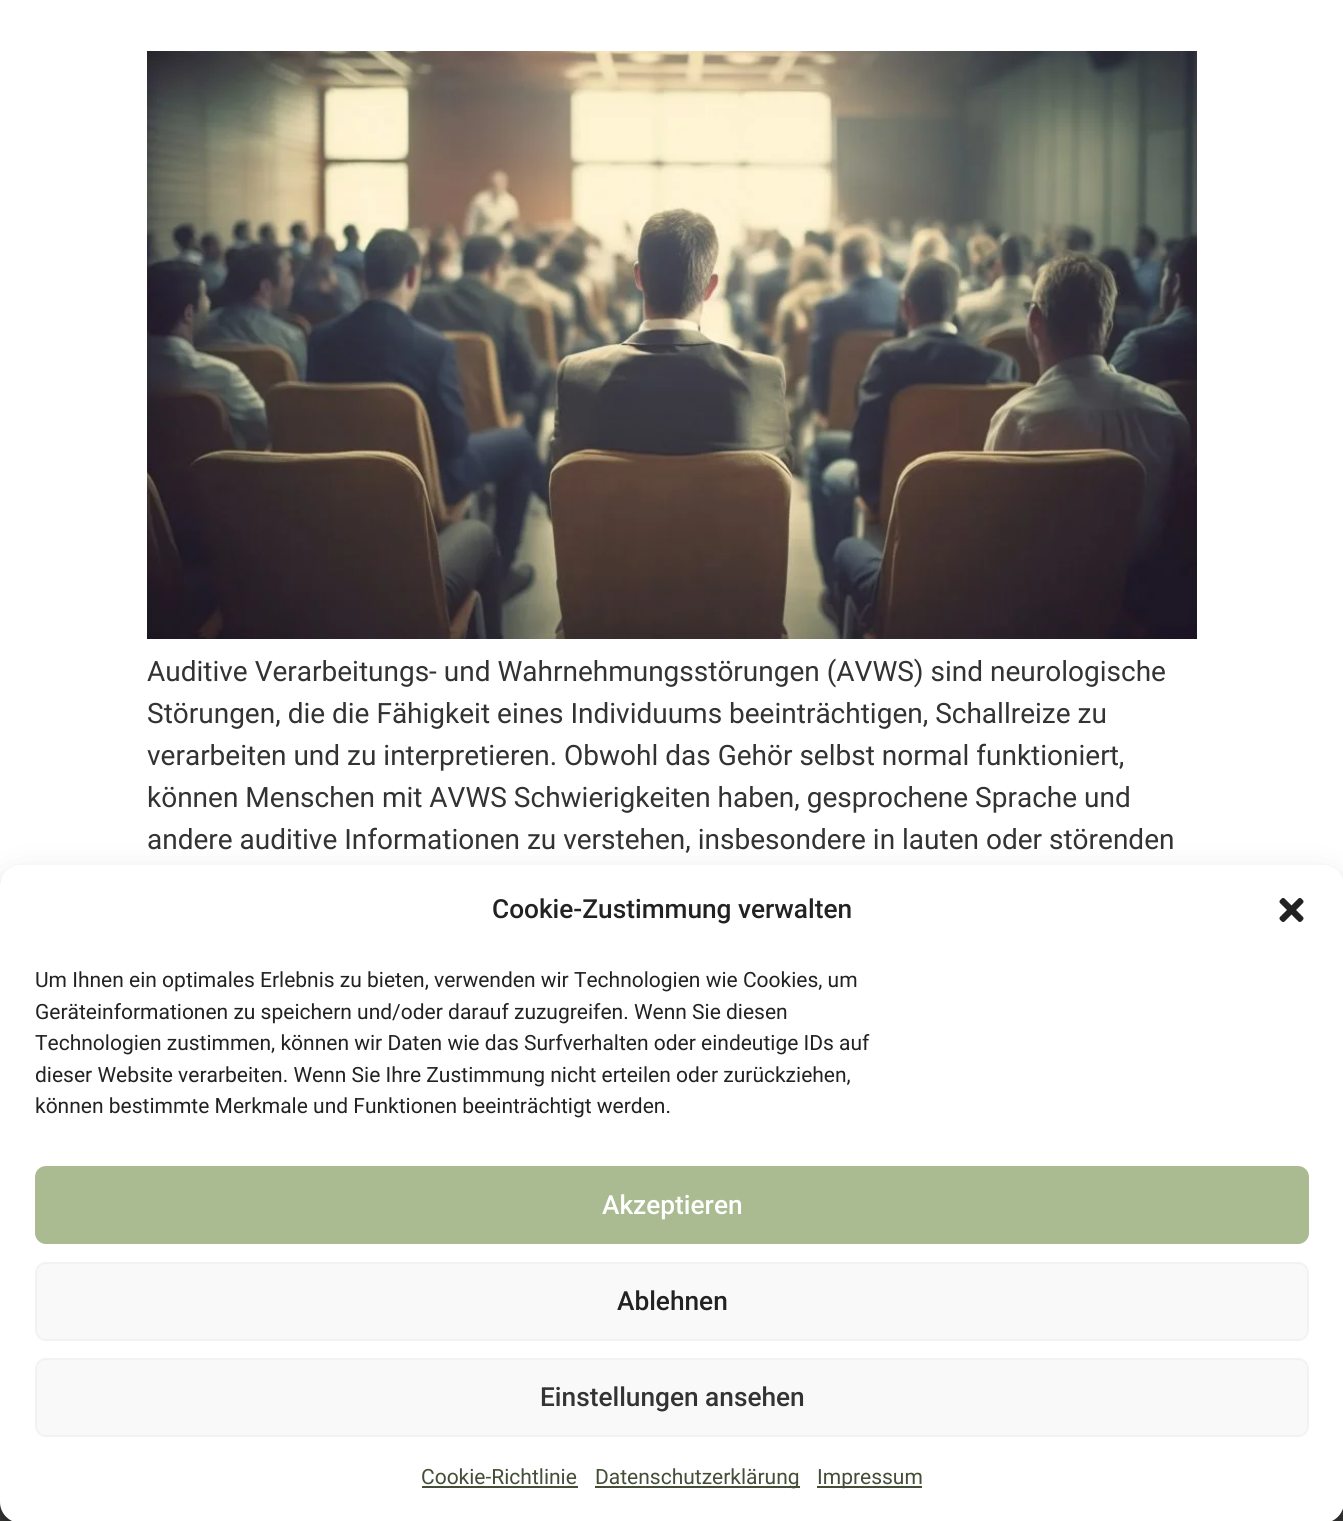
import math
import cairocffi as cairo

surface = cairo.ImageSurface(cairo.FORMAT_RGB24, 1343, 1521)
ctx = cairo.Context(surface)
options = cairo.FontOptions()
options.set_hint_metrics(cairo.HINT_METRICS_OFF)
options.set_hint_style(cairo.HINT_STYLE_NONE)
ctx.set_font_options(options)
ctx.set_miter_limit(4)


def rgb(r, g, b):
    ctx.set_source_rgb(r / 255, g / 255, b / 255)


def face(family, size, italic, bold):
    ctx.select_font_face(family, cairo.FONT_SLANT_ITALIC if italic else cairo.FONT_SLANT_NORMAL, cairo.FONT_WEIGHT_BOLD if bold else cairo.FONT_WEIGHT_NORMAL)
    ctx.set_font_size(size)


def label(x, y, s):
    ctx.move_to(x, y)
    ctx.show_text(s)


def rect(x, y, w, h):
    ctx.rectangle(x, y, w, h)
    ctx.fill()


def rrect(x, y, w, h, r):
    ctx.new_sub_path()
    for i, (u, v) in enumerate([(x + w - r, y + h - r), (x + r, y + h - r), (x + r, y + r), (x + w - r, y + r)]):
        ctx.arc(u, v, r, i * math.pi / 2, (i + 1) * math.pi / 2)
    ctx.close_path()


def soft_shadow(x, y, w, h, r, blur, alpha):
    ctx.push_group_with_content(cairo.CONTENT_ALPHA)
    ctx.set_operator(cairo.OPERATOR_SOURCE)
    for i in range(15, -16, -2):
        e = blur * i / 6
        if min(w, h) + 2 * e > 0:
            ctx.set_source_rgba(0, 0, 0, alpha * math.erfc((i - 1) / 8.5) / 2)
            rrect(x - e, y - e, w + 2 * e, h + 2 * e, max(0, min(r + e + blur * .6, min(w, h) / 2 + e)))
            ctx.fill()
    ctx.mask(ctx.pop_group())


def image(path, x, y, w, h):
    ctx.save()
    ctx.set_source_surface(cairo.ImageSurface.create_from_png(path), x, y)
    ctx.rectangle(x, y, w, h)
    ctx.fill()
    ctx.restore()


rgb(255, 255, 255)
ctx.paint()
image('image0.png', 147, 51, 1050, 588)
face('Roboto', 28, 0, 0)
rgb(51, 51, 51)
label(147, 681, 'Auditive Verarbeitungs- und Wahrnehmungsstörungen (AVWS) sind neurologische')
label(147, 723, 'Störungen, die die Fähigkeit eines Individuums beeinträchtigen, Schallreize zu')
label(147, 765, 'verarbeiten und zu interpretieren. Obwohl das Gehör selbst normal funktioniert,')
label(147, 807, 'können Menschen mit AVWS Schwierigkeiten haben, gesprochene Sprache und')
label(147, 849, 'andere auditive Informationen zu verstehen, insbesondere in lauten oder störenden')
rgb(59, 59, 58)
rect(0, 1502, 1343, 19)
rgb(0, 0, 0)
soft_shadow(0, 875, 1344, 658, 21, 5, 0.23)
soft_shadow(0, 882, 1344, 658, 21, 17.5, 0.19)
rgb(255, 255, 255)
rrect(0, 865, 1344, 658, 21)
ctx.fill()
face('Roboto Medium', 26.25, 0, 0)
rgb(34, 34, 34)
label(492, 918, 'Cookie-Zustimmung verwalten')
image('image1.png', 1279, 898, 25, 24)
face('Roboto', 21, 0, 0)
label(35, 987, 'Um Ihnen ein optimales Erlebnis zu bieten, verwenden wir Technologien wie Cookies, um')
label(35, 1019, 'Geräteinformationen zu speichern und/oder darauf zuzugreifen. Wenn Sie diesen')
label(35, 1050, 'Technologien zustimmen, können wir Daten wie das Surfverhalten oder eindeutige IDs auf')
label(35, 1082, 'dieser Website verarbeiten. Wenn Sie Ihre Zustimmung nicht erteilen oder zurückziehen,')
label(35, 1113, 'können bestimmte Merkmale und Funktionen beeinträchtigt werden.')
rgb(170, 186, 145)
rrect(36, 1167, 1272, 76, 10)
ctx.fill_preserve()
ctx.stroke()
face('Roboto Medium', 26.25, 0, 0)
rgb(255, 255, 255)
label(602, 1214, 'Akzeptieren')
rgb(249, 249, 249)
rrect(36, 1263, 1272, 77, 10)
ctx.fill_preserve()
rgb(242, 242, 242)
ctx.stroke()
rgb(34, 34, 34)
label(617, 1310, 'Ablehnen')
rgb(249, 249, 249)
rrect(36, 1359, 1272, 77, 10)
ctx.fill_preserve()
rgb(242, 242, 242)
ctx.stroke()
rgb(51, 51, 51)
label(540, 1406, 'Einstellungen ansehen')
face('Roboto', 21, 0, 0)
rgb(67, 78, 55)
label(421, 1484, 'Cookie-Richtlinie')
rect(422, 1486, 156, 2)
rect(595, 1486, 205, 2)
label(595, 1484, 'Datenschutzerklärung')
rect(817, 1486, 105, 2)
label(817, 1484, 'Impressum')
surface.write_to_png('render.png')
